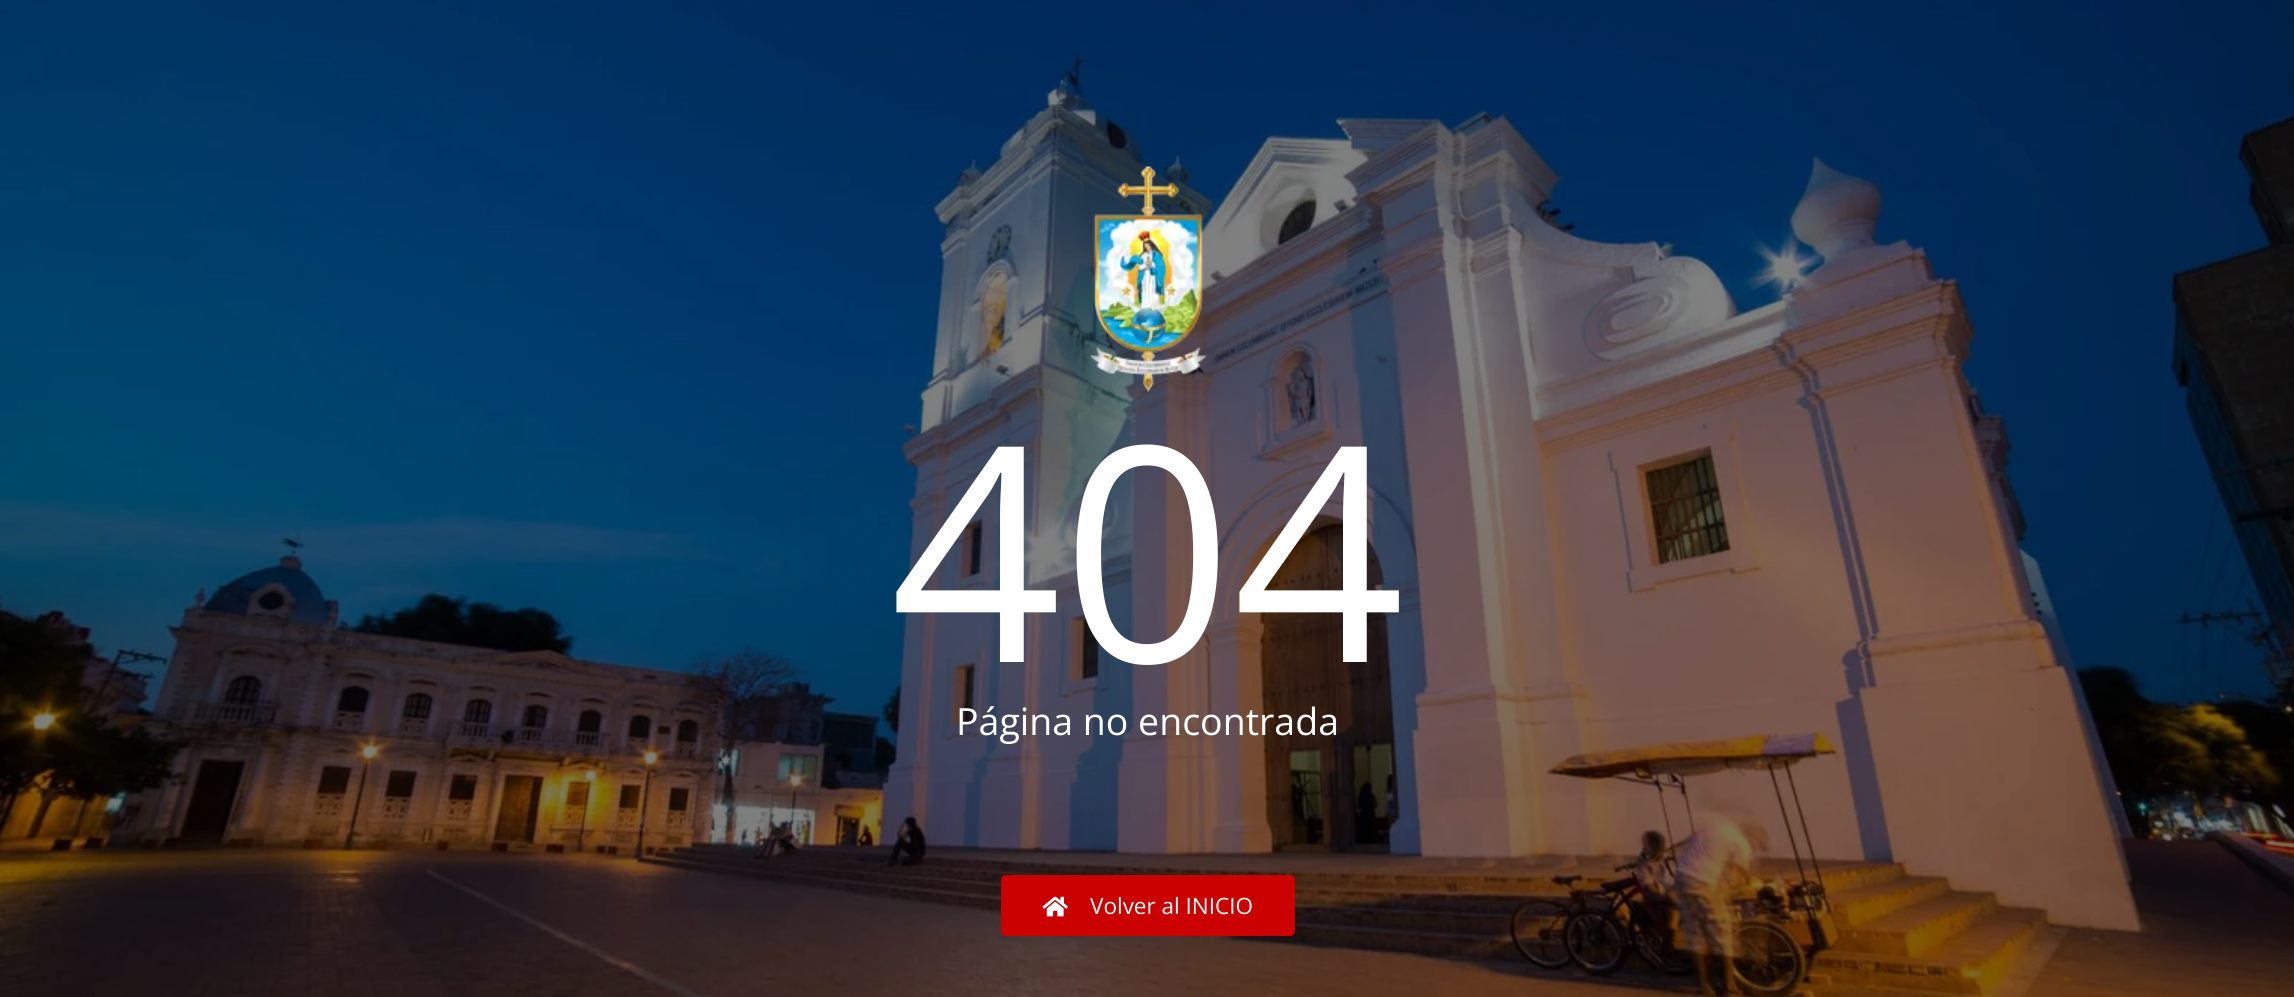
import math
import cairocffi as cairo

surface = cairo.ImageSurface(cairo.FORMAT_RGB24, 2294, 997)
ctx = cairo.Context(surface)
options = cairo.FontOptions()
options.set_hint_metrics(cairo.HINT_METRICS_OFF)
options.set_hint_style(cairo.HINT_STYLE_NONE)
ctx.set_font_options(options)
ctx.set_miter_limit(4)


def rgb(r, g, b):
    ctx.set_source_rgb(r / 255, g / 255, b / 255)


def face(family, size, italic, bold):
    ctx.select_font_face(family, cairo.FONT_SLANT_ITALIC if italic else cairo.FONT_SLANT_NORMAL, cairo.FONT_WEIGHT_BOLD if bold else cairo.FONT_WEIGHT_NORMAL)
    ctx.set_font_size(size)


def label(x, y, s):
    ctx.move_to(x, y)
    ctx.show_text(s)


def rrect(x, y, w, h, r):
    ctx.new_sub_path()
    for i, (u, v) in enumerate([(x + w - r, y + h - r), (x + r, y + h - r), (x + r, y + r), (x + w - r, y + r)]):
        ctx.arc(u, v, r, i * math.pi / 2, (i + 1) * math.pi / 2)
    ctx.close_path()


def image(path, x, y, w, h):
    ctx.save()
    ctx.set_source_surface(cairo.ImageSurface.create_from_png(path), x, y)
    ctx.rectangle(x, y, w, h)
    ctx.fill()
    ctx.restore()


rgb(255, 255, 255)
ctx.paint()
image('image0.png', 0, 0, 2294, 997)
image('image1.png', 1090, 166, 116, 226)
face('Open Sans', 300, 0, 0)
rgb(255, 255, 255)
label(890, 662, '404')
face('Open Sans', 37.5, 0, 0)
label(956, 735, 'Página no encontrada')
rgb(203, 0, 0)
rrect(1001, 875, 294, 61, 5)
ctx.fill()
image('image2.png', 1042, 896, 26, 21)
face('Open Sans', 22.5, 0, 0)
rgb(255, 255, 255)
label(1090, 914, 'Volver al INICIO')
surface.write_to_png('render.png')
